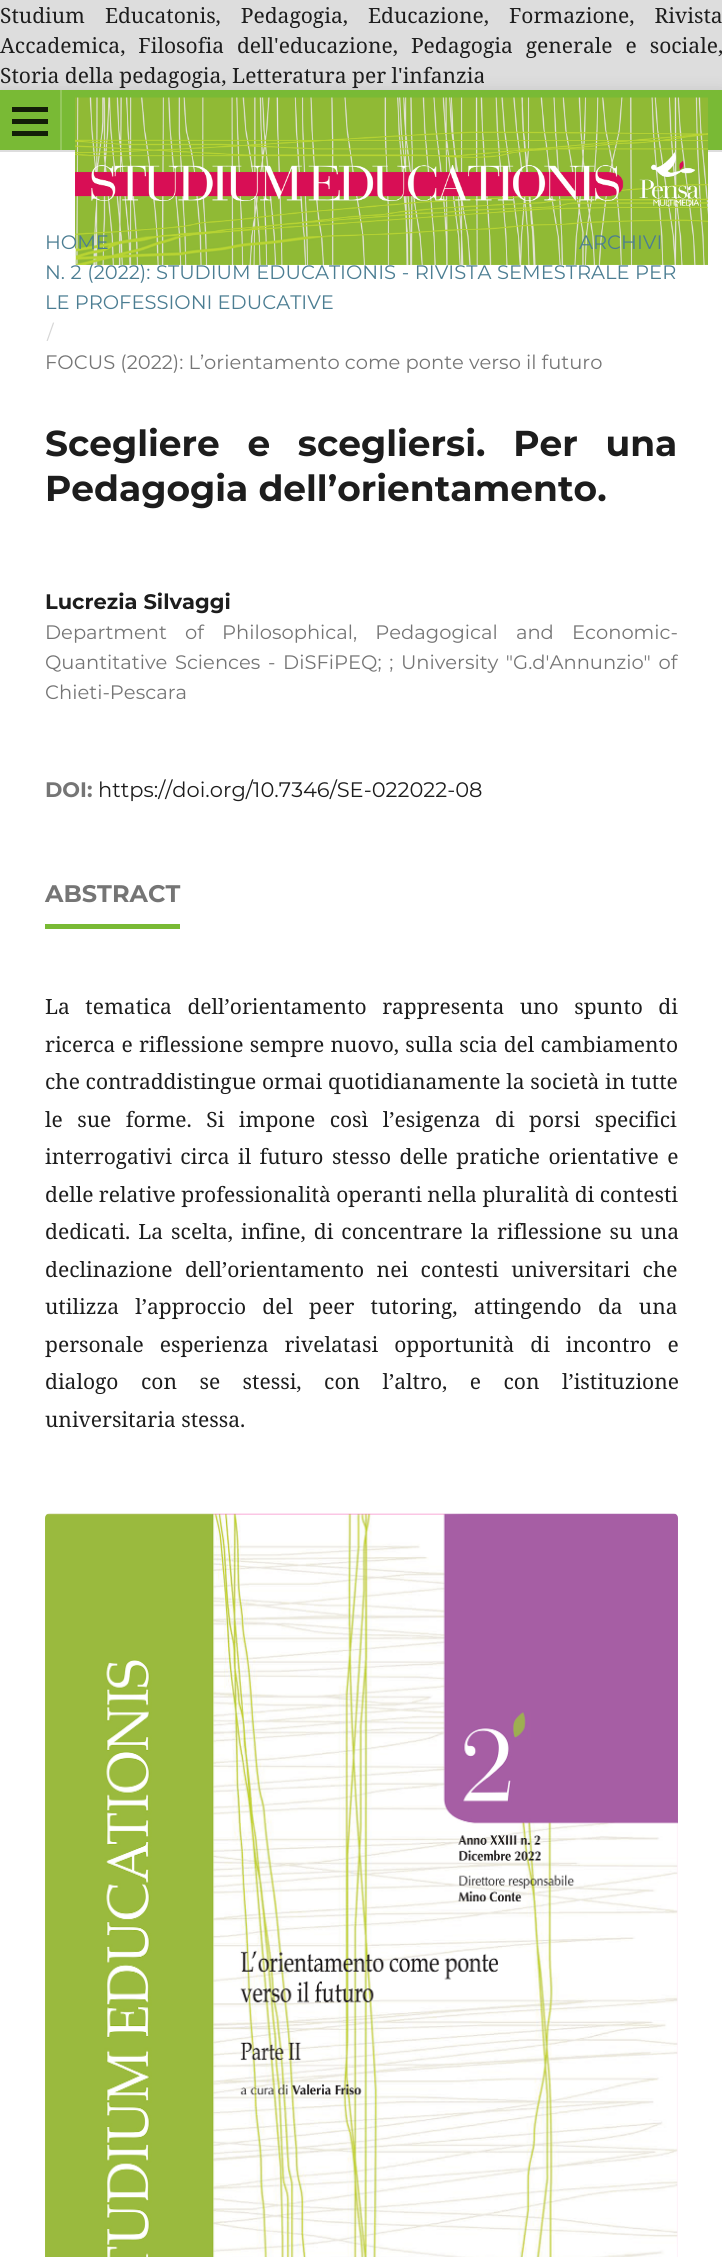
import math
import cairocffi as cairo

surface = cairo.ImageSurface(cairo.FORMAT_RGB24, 722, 2257)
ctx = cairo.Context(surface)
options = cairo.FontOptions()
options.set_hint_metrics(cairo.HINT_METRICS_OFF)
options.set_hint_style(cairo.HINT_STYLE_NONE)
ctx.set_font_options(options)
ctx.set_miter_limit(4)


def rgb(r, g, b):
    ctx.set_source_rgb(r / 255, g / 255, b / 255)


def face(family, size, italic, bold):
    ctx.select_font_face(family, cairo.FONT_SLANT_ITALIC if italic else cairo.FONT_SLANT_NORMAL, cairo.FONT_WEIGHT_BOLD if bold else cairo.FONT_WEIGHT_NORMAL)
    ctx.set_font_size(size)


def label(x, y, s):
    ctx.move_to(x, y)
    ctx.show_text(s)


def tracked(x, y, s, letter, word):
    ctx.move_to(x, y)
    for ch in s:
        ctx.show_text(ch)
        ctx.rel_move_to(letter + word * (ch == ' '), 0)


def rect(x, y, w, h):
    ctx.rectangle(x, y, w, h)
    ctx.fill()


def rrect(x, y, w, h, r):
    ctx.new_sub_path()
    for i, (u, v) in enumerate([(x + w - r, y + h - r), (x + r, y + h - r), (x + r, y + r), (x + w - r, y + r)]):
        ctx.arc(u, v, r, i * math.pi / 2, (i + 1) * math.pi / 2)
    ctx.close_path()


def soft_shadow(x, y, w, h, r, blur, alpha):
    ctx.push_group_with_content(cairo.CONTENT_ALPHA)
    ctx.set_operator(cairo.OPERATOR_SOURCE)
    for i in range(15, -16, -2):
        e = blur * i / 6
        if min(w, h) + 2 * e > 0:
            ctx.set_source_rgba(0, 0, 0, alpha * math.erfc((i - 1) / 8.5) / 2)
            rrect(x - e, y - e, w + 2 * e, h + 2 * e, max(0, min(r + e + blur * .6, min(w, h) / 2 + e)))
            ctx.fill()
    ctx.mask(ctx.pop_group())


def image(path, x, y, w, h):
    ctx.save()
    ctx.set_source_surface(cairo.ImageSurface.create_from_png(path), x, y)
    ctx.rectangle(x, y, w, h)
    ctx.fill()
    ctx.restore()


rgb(221, 221, 221)
ctx.paint()
face('Noto Serif', 21, 0, 0)
rgb(29, 29, 29)
tracked(0, 23, 'Studium Educatonis, Pedagogia, Educazione, Formazione, Rivista', 0, 14.5)
tracked(0, 53, 'Accademica, Filosofia dell\'educazione, Pedagogia generale e sociale,', 0, 7.5)
rgb(0, 0, 0)
soft_shadow(0, 90, 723, 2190, 0, 7.5, 0.1)
rgb(29, 29, 29)
label(0, 83, 'Storia della pedagogia, Letteratura per l\'infanzia')
rgb(255, 255, 255)
rect(0, 152, 722, 2105)
rgb(121, 186, 53)
rect(0, 90, 722, 60)
rgb(221, 221, 221)
rect(0, 150, 722, 2)
rgb(148, 200, 93)
rect(60, 90, 2, 60)
rgb(19, 30, 8)
rect(12, 131, 36, 5)
rect(12, 107, 36, 5)
rect(12, 119, 36, 5)
image('image0.png', 75, 97, 633, 168)
face('Montserrat', 19.5, 0, 0)
rgb(75, 125, 146)
label(45, 249, 'HOME')
label(579, 249, 'ARCHIVI')
tracked(45, 279, 'N. 2 (2022): STUDIUM EDUCATIONIS - RIVISTA SEMESTRALE PER', 0, 0.5)
label(45, 309, 'LE PROFESSIONI EDUCATIVE')
rgb(214, 214, 214)
label(47, 339, '/')
rgb(117, 117, 117)
label(45, 369, 'FOCUS (2022): L’orientamento come ponte verso il futuro')
face('Montserrat', 36, 0, 1)
rgb(29, 29, 29)
tracked(45, 456, 'Scegliere e scegliersi. Per una', 0, 17.5)
label(45, 501, 'Pedagogia dell’orientamento.')
face('Montserrat', 21, 0, 1)
label(45, 609, 'Lucrezia Silvaggi')
face('Montserrat', 19.5, 0, 0)
rgb(117, 117, 117)
tracked(45, 639, 'Department of Philosophical, Pedagogical and Economic-', 0, 13)
tracked(45, 669, 'Quantitative Sciences - DiSFiPEQ; ; University "G.d\'Annunzio" of', 0, 2.5)
label(45, 699, 'Chieti-Pescara')
face('Montserrat', 21, 0, 1)
label(45, 797, 'DOI:')
face('Montserrat', 21, 0, 0)
rgb(29, 29, 29)
label(98, 797, 'https://doi.org/10.7346/SE-022022-08')
rgb(121, 186, 53)
rect(45, 924, 135, 5)
face('Montserrat', 24, 0, 1)
rgb(117, 117, 117)
label(45, 902, 'ABSTRACT')
face('Noto Serif', 21, 0, 0)
rgb(29, 29, 29)
tracked(45, 1014, 'La tematica dell’orientamento rappresenta uno spunto di', 0, 10)
tracked(45, 1052, 'ricerca e riflessione sempre nuovo, sulla scia del cambiamento', 0, 0.75)
tracked(45, 1089, 'che contraddistingue ormai quotidianamente la società in tutte', 0, 0.25)
tracked(45, 1127, 'le sue forme. Si impone così l’esigenza di porsi specifici', 0, 9)
tracked(45, 1164, 'interrogativi circa il futuro stesso delle pratiche orientative e', 0, 3)
label(45, 1202, 'delle relative professionalità operanti nella pluralità di contesti')
tracked(45, 1239, 'dedicati. La scelta, infine, di concentrare la riflessione su una', 0, 2.5)
tracked(45, 1277, 'declinazione dell’orientamento nei contesti universitari che', 0, 7)
tracked(45, 1314, 'utilizza l’approccio del peer tutoring, attingendo da una', 0, 10.75)
tracked(45, 1352, 'personale esperienza rivelatasi opportunità di incontro e', 0, 10.5)
tracked(45, 1389, 'dialogo con se stessi, con l’altro, e con l’istituzione', 0, 17)
label(45, 1427, 'universitaria stessa.')
image('image1.png', 45, 1513, 633, 744)
surface.write_to_png('render.png')
